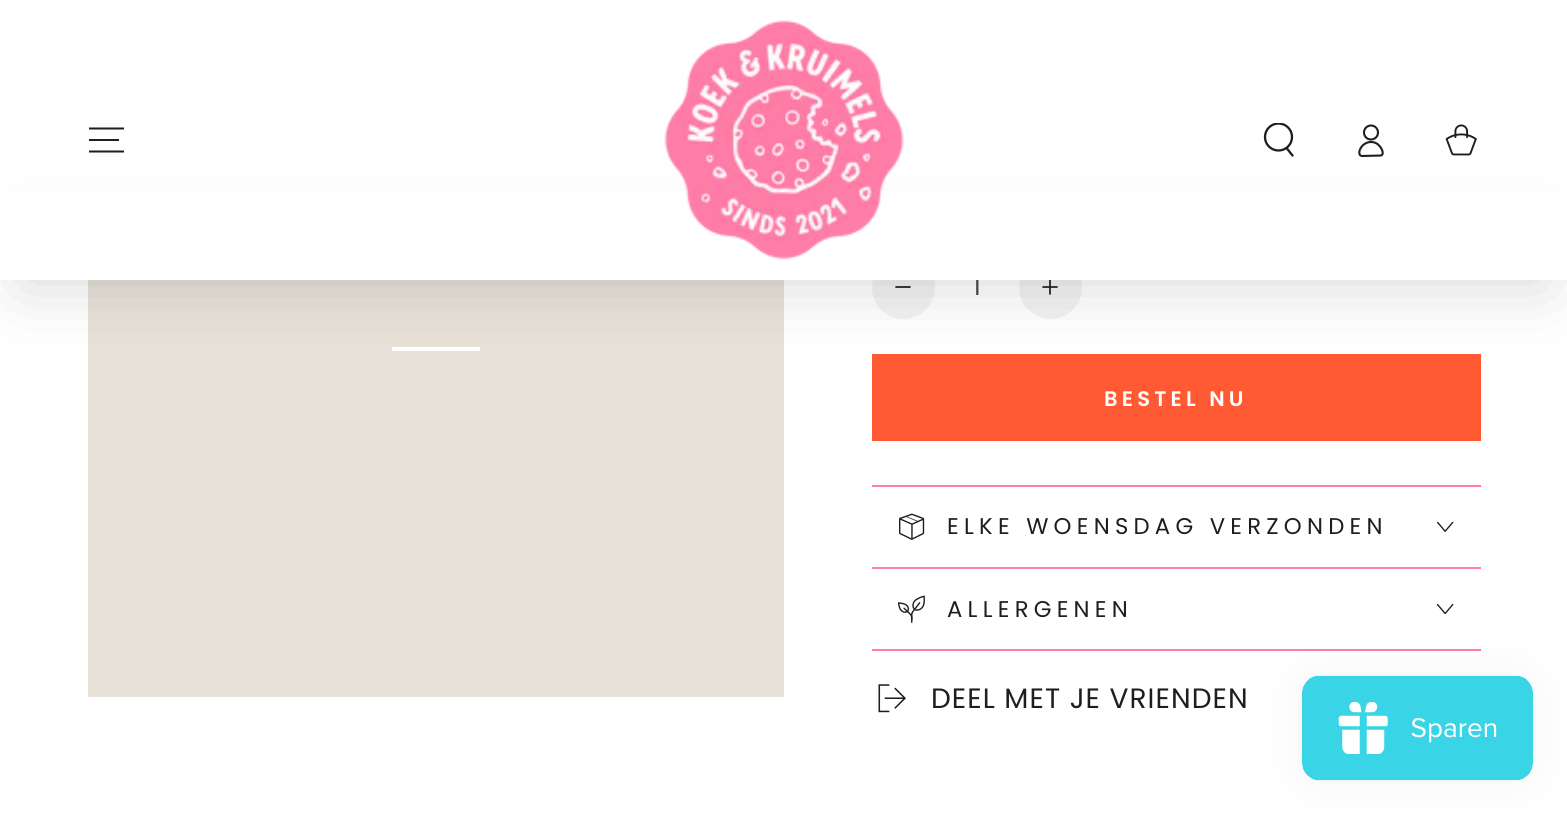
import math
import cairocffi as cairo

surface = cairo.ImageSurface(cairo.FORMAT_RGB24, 1567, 814)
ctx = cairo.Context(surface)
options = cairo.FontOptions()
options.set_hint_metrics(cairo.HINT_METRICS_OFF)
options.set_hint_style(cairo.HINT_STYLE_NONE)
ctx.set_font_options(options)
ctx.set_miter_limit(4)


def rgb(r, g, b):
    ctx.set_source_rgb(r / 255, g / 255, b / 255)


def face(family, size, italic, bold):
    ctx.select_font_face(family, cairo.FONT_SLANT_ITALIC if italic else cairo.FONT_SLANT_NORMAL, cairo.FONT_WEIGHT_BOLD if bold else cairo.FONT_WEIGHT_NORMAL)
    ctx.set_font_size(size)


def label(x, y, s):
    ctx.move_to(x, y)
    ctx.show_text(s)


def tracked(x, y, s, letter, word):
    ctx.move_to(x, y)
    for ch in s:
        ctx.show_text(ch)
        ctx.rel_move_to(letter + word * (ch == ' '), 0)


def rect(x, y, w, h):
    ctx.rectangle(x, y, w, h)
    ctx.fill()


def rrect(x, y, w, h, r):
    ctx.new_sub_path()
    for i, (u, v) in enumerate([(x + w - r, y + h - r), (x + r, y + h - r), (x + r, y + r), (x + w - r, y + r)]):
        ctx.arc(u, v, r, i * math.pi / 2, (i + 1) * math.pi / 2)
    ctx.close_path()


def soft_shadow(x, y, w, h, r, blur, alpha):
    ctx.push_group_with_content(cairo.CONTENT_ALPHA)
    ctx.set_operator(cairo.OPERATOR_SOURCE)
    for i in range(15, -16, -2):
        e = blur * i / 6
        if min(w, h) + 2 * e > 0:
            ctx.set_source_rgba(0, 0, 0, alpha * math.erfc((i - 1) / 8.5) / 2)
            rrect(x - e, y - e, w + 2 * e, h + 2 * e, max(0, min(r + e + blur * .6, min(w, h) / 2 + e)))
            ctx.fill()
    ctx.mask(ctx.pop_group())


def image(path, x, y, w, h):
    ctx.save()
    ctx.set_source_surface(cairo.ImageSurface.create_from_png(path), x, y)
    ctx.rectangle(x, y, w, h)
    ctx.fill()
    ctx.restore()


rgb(255, 255, 255)
ctx.paint()
rgb(231, 225, 216)
rect(88, 280, 696, 417)
rgb(255, 255, 255)
rect(392, 347, 88, 4)
rgb(242, 242, 242)
ctx.arc(903.5, 287.5, 31.5, 0, 2 * math.pi)
ctx.fill()
image('image2.png', 895, 286, 16, 2)
ctx.arc(1050.5, 287.5, 31.5, 0, 2 * math.pi)
ctx.fill()
image('image3.png', 1042, 280, 16, 15)
rgb(255, 90, 51)
rect(872, 354, 609, 87)
rgb(30, 30, 30)
soft_shadow(26, 245, 1516, 35, 17.5, 35, 0.2)
ctx.new_path()
ctx.move_to(89, 151.5)
ctx.line_to(124, 151.5)
ctx.move_to(89, 140)
ctx.line_to(119, 140)
ctx.move_to(89, 128.5)
ctx.line_to(124, 128.5)
rgb(30, 30, 30)
ctx.stroke()
face('Poppins', 24, 0, 0)
rgb(64, 64, 64)
label(973, 295, '1')
rgb(255, 255, 255)
rect(0, 191, 1567, 89)
image('image0.png', 664, 20, 240, 240)
ctx.save()
ctx.rectangle(1262, 123, 35, 35)
ctx.clip()
ctx.arc(1278.5, 137, 13.5, 0, 2 * math.pi)
rgb(30, 30, 30)
ctx.set_line_width(2.3)
ctx.stroke()
ctx.restore()
ctx.new_path()
ctx.move_to(1286.5, 148)
ctx.line_to(1292.5, 155.5)
rgb(30, 30, 30)
ctx.set_line_width(2.3)
ctx.set_line_cap(cairo.LINE_CAP_ROUND)
ctx.stroke()
ctx.new_path()
ctx.move_to(1371, 142)
ctx.curve_to(1360.5, 142, 1356, 155.5, 1362, 156)
ctx.line_to(1381, 155.5)
ctx.curve_to(1385, 154, 1381, 147, 1379, 145.5)
ctx.curve_to(1377, 143, 1374, 142, 1371, 142)
ctx.close_path()
ctx.set_line_width(2.1)
ctx.set_line_cap(cairo.LINE_CAP_BUTT)
ctx.stroke()
ctx.arc(1371, 132.5, 7, 0, 2 * math.pi)
ctx.stroke()
image('image1.png', 1445, 124, 32, 32)
face('Poppins SemiBold', 21, 0, 0)
rgb(255, 255, 255)
tracked(1104, 406, 'BESTEL NU', 4.25, 0)
rgb(255, 125, 168)
rect(872, 485, 609, 2)
rect(872, 567, 609, 2)
image('image4.png', 899, 513, 26, 27)
face('Poppins', 22.75, 0, 0)
rgb(30, 30, 30)
tracked(947, 534, 'ELKE WOENSDAG VERZONDEN', 5.25, 0)
image('image5.png', 1437, 522, 17, 10)
rgb(255, 125, 168)
rect(872, 649, 609, 2)
image('image6.png', 898, 595, 27, 28)
rgb(30, 30, 30)
tracked(947, 617, 'ALLERGENEN', 5.25, 0)
image('image7.png', 1437, 604, 17, 10)
image('image8.png', 878, 684, 28, 29)
face('Poppins', 28, 0, 0)
tracked(931, 708, 'DEEL MET JE VRIENDEN', 1.05, 0)
rgb(0, 0, 0)
soft_shadow(1302, 676, 231, 105, 18, 22, 0.05)
image('image9.png', 1302, 675, 231, 106)
surface.write_to_png('render.png')
